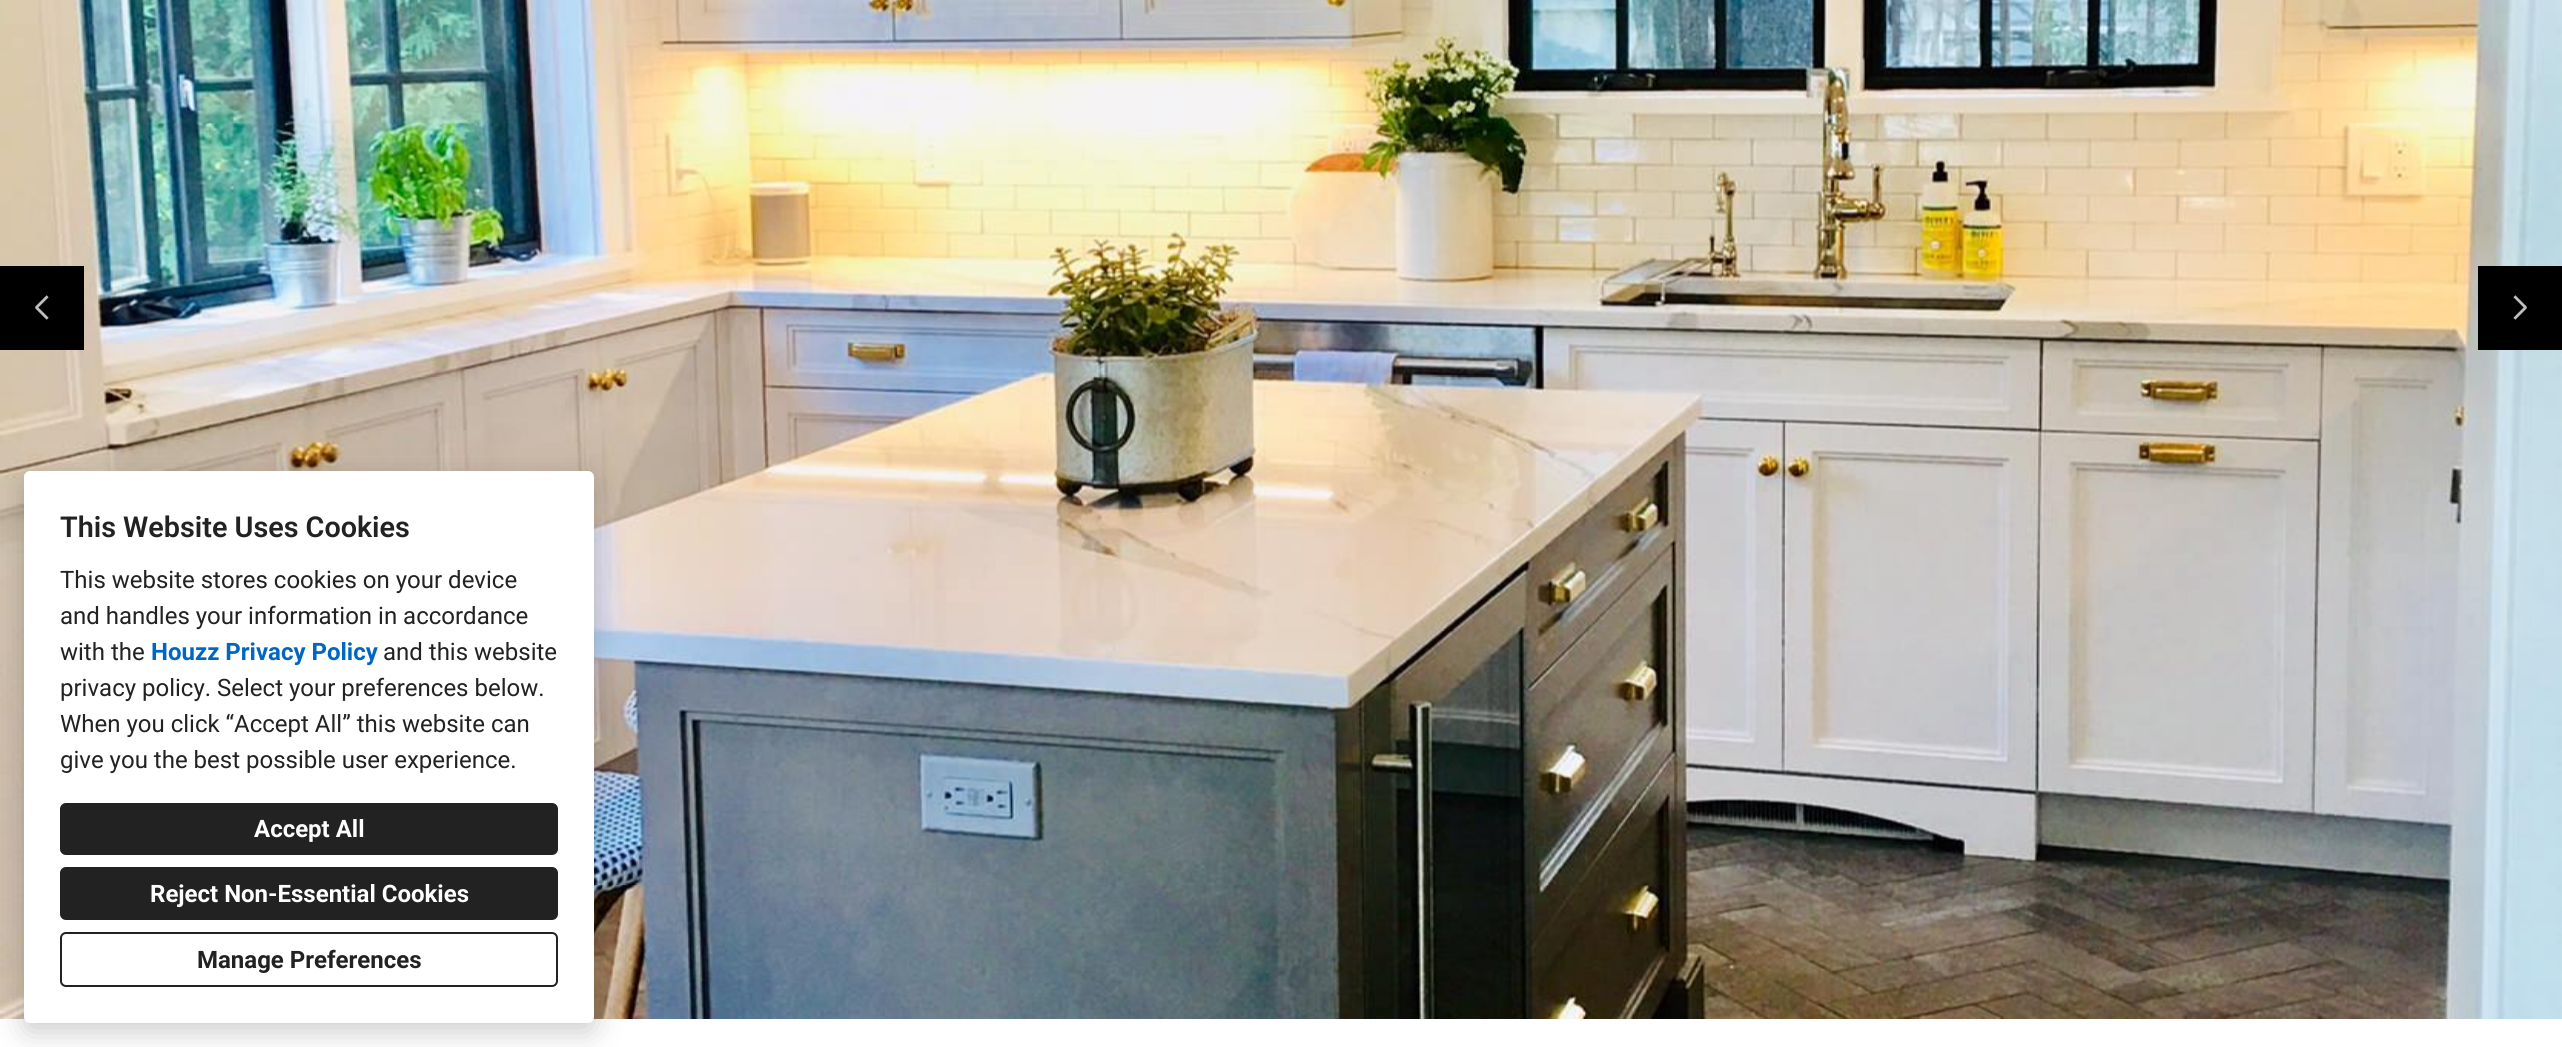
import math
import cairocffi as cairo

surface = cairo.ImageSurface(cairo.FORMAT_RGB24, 2562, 1047)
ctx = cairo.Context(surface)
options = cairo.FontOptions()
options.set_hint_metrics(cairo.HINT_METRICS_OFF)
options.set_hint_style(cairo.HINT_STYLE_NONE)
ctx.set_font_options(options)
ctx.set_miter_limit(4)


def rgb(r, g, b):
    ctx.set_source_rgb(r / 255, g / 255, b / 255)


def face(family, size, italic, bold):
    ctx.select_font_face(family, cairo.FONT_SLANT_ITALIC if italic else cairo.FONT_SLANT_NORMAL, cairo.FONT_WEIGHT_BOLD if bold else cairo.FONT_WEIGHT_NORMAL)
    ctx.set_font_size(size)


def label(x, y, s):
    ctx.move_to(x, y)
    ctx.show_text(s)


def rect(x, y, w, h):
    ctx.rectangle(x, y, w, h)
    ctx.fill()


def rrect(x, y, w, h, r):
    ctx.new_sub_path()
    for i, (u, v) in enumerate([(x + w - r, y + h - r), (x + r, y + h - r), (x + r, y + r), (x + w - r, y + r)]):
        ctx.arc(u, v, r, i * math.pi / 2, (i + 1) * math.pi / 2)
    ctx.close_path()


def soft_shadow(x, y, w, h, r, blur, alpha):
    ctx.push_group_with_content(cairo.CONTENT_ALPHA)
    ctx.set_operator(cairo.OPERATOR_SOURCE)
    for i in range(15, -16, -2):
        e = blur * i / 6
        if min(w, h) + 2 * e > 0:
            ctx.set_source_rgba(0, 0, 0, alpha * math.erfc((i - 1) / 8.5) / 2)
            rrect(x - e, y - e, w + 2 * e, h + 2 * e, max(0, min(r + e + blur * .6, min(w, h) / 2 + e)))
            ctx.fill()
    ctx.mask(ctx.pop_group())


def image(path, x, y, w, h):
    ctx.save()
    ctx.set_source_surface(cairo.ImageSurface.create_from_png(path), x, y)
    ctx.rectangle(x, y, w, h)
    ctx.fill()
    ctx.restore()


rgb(255, 255, 255)
ctx.paint()
image('image0.png', 0, 0, 2562, 1019)
rgb(0, 0, 0)
rect(0, 266, 84, 84)
image('image1.png', 35, 295, 14, 25)
rect(2478, 266, 84, 84)
image('image2.png', 2513, 295, 14, 25)
rgb(0, 0, 0)
soft_shadow(24, 480, 570, 552, 6, 15, 0.2)
rgb(255, 255, 255)
rrect(24, 471, 570, 552, 6)
ctx.fill()
face('Roboto SemiBold', 28.75, 0, 0)
rgb(34, 34, 34)
label(60, 537, 'This Website Uses Cookies')
face('Roboto', 24, 0, 0)
label(60, 588, 'This website stores cookies on your device')
label(60, 624, 'and handles your information in accordance')
label(60, 660, 'with the')
face('Roboto', 24, 0, 1)
rgb(0, 102, 195)
label(151, 660, 'Houzz Privacy Policy')
face('Roboto', 24, 0, 0)
rgb(34, 34, 34)
label(383, 660, 'and this website')
label(60, 696, 'privacy policy. Select your preferences below.')
label(60, 732, 'When you click “Accept All” this website can')
label(60, 768, 'give you the best possible user experience.')
rrect(60, 803, 498, 52, 6)
ctx.fill()
face('Roboto', 24, 0, 1)
rgb(255, 255, 255)
label(254, 837, 'Accept All')
rgb(34, 34, 34)
rrect(60, 867, 498, 53, 6)
ctx.fill()
rgb(255, 255, 255)
label(150, 902, 'Reject Non-Essential Cookies')
rrect(61, 933, 496, 53, 5)
rgb(34, 34, 34)
ctx.stroke()
label(197, 968, 'Manage Preferences')
surface.write_to_png('render.png')
